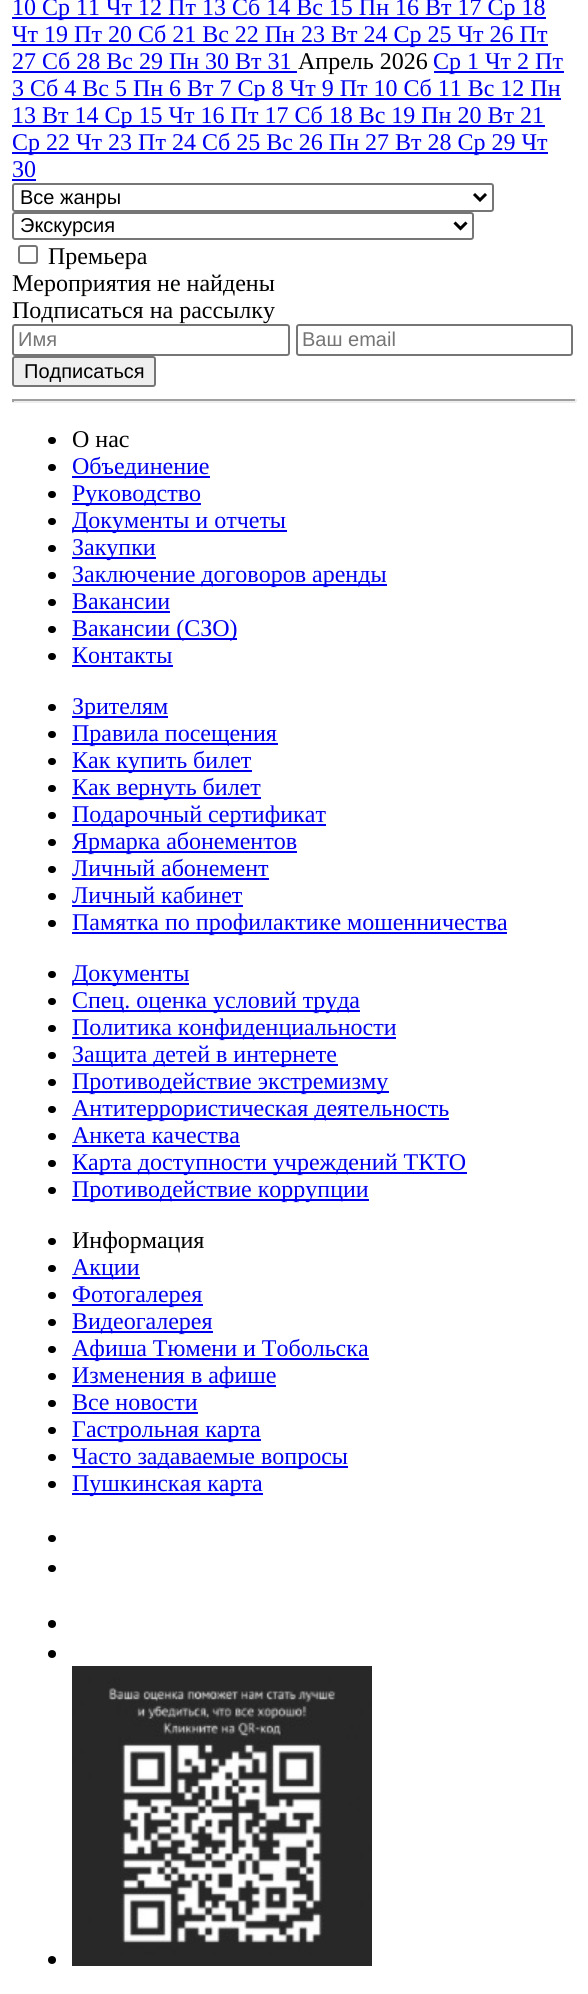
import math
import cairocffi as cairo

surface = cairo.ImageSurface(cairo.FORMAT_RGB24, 588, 1994)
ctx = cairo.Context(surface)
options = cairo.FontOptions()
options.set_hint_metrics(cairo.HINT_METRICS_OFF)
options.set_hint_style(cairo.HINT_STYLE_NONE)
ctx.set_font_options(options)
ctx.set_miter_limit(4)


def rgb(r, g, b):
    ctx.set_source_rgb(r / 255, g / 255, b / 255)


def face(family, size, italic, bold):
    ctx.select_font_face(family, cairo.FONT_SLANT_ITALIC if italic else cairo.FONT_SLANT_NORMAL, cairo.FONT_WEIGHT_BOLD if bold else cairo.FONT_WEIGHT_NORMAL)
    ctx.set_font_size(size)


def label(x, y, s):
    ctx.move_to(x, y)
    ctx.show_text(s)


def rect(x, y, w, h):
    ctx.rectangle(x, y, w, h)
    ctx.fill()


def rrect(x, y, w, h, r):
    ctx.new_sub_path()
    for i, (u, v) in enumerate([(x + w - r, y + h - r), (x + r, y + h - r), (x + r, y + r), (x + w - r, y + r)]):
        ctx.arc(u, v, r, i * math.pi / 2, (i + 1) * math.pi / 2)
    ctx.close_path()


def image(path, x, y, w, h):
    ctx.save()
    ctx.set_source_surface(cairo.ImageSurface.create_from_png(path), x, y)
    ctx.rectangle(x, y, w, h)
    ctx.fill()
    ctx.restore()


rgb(255, 255, 255)
ctx.paint()
rgb(0, 0, 238)
rect(12, 17, 534, 2)
face('Liberation Serif', 24, 0, 0)
label(12, 15, '10 Ср 11 Чт 12 Пт 13 Сб 14 Вс 15 Пн 16 Вт 17 Ср 18')
rect(12, 44, 471, 2)
label(12, 42, 'Чт 19 Пт 20 Сб 21 Вс 22 Пн 23 Вт 24 Ср 25 Чт 26 Пт')
rect(483, 44, 65, 2)
label(12, 69, '27 Сб 28 Вс 29 Пн 30 Вт 31')
rect(12, 71, 285, 2)
rgb(0, 0, 0)
label(298, 69, 'Апрель 2026')
rgb(0, 0, 238)
rect(434, 71, 130, 2)
label(433, 69, 'Ср 1 Чт 2 Пт')
rect(12, 98, 303, 2)
label(12, 96, '3 Сб 4 Вс 5 Пн 6 Вт 7 Ср 8 Чт 9 Пт 10 Сб 11 Вс 12 Пн')
rect(315, 98, 246, 2)
rect(12, 125, 246, 2)
label(12, 123, '13 Вт 14 Ср 15 Чт 16 Пт 17 Сб 18 Вс 19 Пн 20 Вт 21')
rect(258, 125, 287, 2)
rect(12, 152, 536, 2)
label(12, 150, 'Ср 22 Чт 23 Пт 24 Сб 25 Вс 26 Пн 27 Вт 28 Ср 29 Чт')
label(12, 177, '30')
rect(12, 179, 24, 2)
rrect(13, 184, 480, 27, 2)
rgb(118, 118, 118)
ctx.stroke()
ctx.new_path()
ctx.move_to(474, 194)
ctx.line_to(480, 200)
ctx.line_to(486, 194)
rgb(0, 0, 0)
ctx.set_line_width(3)
ctx.stroke()
face('Liberation Sans', 20, 0, 0)
label(20, 204, 'Все жанры')
rrect(13, 213, 460, 26, 2)
rgb(118, 118, 118)
ctx.set_line_width(2)
ctx.stroke()
ctx.new_path()
ctx.move_to(454.5, 222.5)
ctx.line_to(460.5, 228.5)
ctx.line_to(466.5, 222.5)
rgb(0, 0, 0)
ctx.set_line_width(3)
ctx.stroke()
label(20, 232, 'Экскурсия')
rrect(19, 246, 18, 17, 2)
rgb(118, 118, 118)
ctx.set_line_width(2)
ctx.stroke()
face('Liberation Serif', 24, 0, 0)
rgb(0, 0, 0)
label(48, 264, 'Премьера')
label(12, 291, 'Мероприятия не найдены')
label(12, 318, 'Подписаться на рассылку')
rrect(13, 325, 276, 30, 2)
rgb(118, 118, 118)
ctx.stroke()
face('Liberation Sans', 20, 0, 0)
rgb(117, 117, 117)
label(18, 346, 'Имя')
rrect(297, 325, 275, 30, 2)
rgb(118, 118, 118)
ctx.stroke()
rgb(117, 117, 117)
label(302, 346, 'Ваш email')
rgb(239, 239, 239)
rrect(13, 357, 142, 29, 2)
ctx.fill_preserve()
rgb(118, 118, 118)
ctx.stroke()
rgb(0, 0, 0)
label(24, 378, 'Подписаться')
rgb(159, 159, 159)
rect(12, 399, 564, 2)
rgb(238, 238, 238)
rect(575, 399, 2, 3)
rect(12, 401, 564, 2)
rgb(159, 159, 159)
rect(12, 399, 2, 3)
rgb(0, 0, 0)
rrect(48, 437, 8, 7, 3.5)
ctx.fill()
face('Liberation Serif', 24, 0, 0)
label(72, 447, 'О нас')
rrect(48, 464, 8, 7, 3.5)
ctx.fill()
rgb(0, 0, 238)
rect(72, 476, 138, 2)
label(72, 474, 'Объединение')
rgb(0, 0, 0)
rrect(48, 491, 8, 7, 3.5)
ctx.fill()
rgb(0, 0, 238)
rect(72, 503, 129, 2)
label(72, 501, 'Руководство')
rgb(0, 0, 0)
rrect(48, 518, 8, 7, 3.5)
ctx.fill()
rgb(0, 0, 238)
rect(72, 530, 215, 2)
label(72, 528, 'Документы и отчеты')
rgb(0, 0, 0)
rrect(48, 545, 8, 7, 3.5)
ctx.fill()
rgb(0, 0, 238)
rect(72, 557, 84, 2)
label(72, 555, 'Закупки')
rgb(0, 0, 0)
rrect(48, 572, 8, 7, 3.5)
ctx.fill()
rgb(0, 0, 238)
rect(72, 584, 315, 2)
label(72, 582, 'Заключение договоров аренды')
rgb(0, 0, 0)
rrect(48, 599, 8, 7, 3.5)
ctx.fill()
rgb(0, 0, 238)
label(72, 609, 'Вакансии')
rect(72, 611, 98, 2)
rgb(0, 0, 0)
rrect(48, 626, 8, 7, 3.5)
ctx.fill()
rgb(0, 0, 238)
rect(72, 638, 165, 2)
label(72, 636, 'Вакансии (СЗО)')
rgb(0, 0, 0)
rrect(48, 653, 8, 7, 3.5)
ctx.fill()
rgb(0, 0, 238)
label(72, 663, 'Контакты')
rect(72, 665, 101, 2)
rgb(0, 0, 0)
rrect(48, 704, 8, 7, 3.5)
ctx.fill()
rgb(0, 0, 238)
rect(72, 716, 96, 2)
label(72, 714, 'Зрителям')
rgb(0, 0, 0)
rrect(48, 731, 8, 7, 3.5)
ctx.fill()
rgb(0, 0, 238)
rect(72, 743, 206, 2)
label(72, 741, 'Правила посещения')
rgb(0, 0, 0)
rrect(48, 758, 8, 7, 3.5)
ctx.fill()
rgb(0, 0, 238)
rect(72, 770, 180, 2)
label(72, 768, 'Как купить билет')
rgb(0, 0, 0)
rrect(48, 785, 8, 7, 3.5)
ctx.fill()
rgb(0, 0, 238)
rect(72, 797, 189, 2)
label(72, 795, 'Как вернуть билет')
rgb(0, 0, 0)
rrect(48, 812, 8, 7, 3.5)
ctx.fill()
rgb(0, 0, 238)
rect(72, 824, 254, 2)
label(72, 822, 'Подарочный сертификат')
rgb(0, 0, 0)
rrect(48, 839, 8, 7, 3.5)
ctx.fill()
rgb(0, 0, 238)
rect(72, 851, 225, 2)
label(72, 849, 'Ярмарка абонементов')
rgb(0, 0, 0)
rrect(48, 866, 8, 7, 3.5)
ctx.fill()
rgb(0, 0, 238)
label(72, 876, 'Личный абонемент')
rect(72, 878, 197, 2)
rgb(0, 0, 0)
rrect(48, 893, 8, 7, 3.5)
ctx.fill()
rgb(0, 0, 238)
label(72, 903, 'Личный кабинет')
rect(72, 905, 171, 2)
rgb(0, 0, 0)
rrect(48, 920, 8, 7, 3.5)
ctx.fill()
rgb(0, 0, 238)
rect(72, 932, 435, 2)
label(72, 930, 'Памятка по профилактике мошенничества')
rgb(0, 0, 0)
rrect(48, 971, 8, 7, 3.5)
ctx.fill()
rgb(0, 0, 238)
rect(72, 983, 117, 2)
label(72, 981, 'Документы')
rgb(0, 0, 0)
rrect(48, 998, 8, 7, 3.5)
ctx.fill()
rgb(0, 0, 238)
rect(72, 1010, 288, 2)
label(72, 1008, 'Спец. оценка условий труда')
rgb(0, 0, 0)
rrect(48, 1025, 8, 7, 3.5)
ctx.fill()
rgb(0, 0, 238)
rect(72, 1037, 324, 2)
label(72, 1035, 'Политика конфиденциальности')
rgb(0, 0, 0)
rrect(48, 1052, 8, 7, 3.5)
ctx.fill()
rgb(0, 0, 238)
rect(72, 1064, 266, 2)
label(72, 1062, 'Защита детей в интернете')
rgb(0, 0, 0)
rrect(48, 1079, 8, 7, 3.5)
ctx.fill()
rgb(0, 0, 238)
rect(72, 1091, 317, 2)
label(72, 1089, 'Противодействие экстремизму')
rgb(0, 0, 0)
rrect(48, 1106, 8, 7, 3.5)
ctx.fill()
rgb(0, 0, 238)
rect(72, 1118, 377, 2)
label(72, 1116, 'Антитеррористическая деятельность')
rgb(0, 0, 0)
rrect(48, 1133, 8, 7, 3.5)
ctx.fill()
rgb(0, 0, 238)
label(72, 1143, 'Анкета качества')
rect(72, 1145, 168, 2)
rgb(0, 0, 0)
rrect(48, 1160, 8, 7, 3.5)
ctx.fill()
rgb(0, 0, 238)
rect(72, 1172, 395, 2)
label(72, 1170, 'Карта доступности учреждений ТКТО')
rgb(0, 0, 0)
rrect(48, 1187, 8, 7, 3.5)
ctx.fill()
rgb(0, 0, 238)
rect(72, 1199, 297, 2)
label(72, 1197, 'Противодействие коррупции')
rgb(0, 0, 0)
rrect(48, 1238, 8, 7, 3.5)
ctx.fill()
label(72, 1248, 'Информация')
rrect(48, 1265, 8, 7, 3.5)
ctx.fill()
rgb(0, 0, 238)
rect(72, 1277, 68, 2)
label(72, 1275, 'Акции')
rgb(0, 0, 0)
rrect(48, 1292, 8, 7, 3.5)
ctx.fill()
rgb(0, 0, 238)
rect(72, 1304, 131, 2)
label(72, 1302, 'Фотогалерея')
rgb(0, 0, 0)
rrect(48, 1319, 8, 7, 3.5)
ctx.fill()
rgb(0, 0, 238)
rect(72, 1331, 141, 2)
label(72, 1329, 'Видеогалерея')
rgb(0, 0, 0)
rrect(48, 1346, 8, 7, 3.5)
ctx.fill()
rgb(0, 0, 238)
rect(72, 1358, 297, 2)
label(72, 1356, 'Афиша Тюмени и Тобольска')
rgb(0, 0, 0)
rrect(48, 1373, 8, 7, 3.5)
ctx.fill()
rgb(0, 0, 238)
rect(72, 1385, 204, 2)
label(72, 1383, 'Изменения в афише')
rgb(0, 0, 0)
rrect(48, 1400, 8, 7, 3.5)
ctx.fill()
rgb(0, 0, 238)
label(72, 1410, 'Все новости')
rect(72, 1412, 126, 2)
rgb(0, 0, 0)
rrect(48, 1427, 8, 7, 3.5)
ctx.fill()
rgb(0, 0, 238)
rect(72, 1439, 189, 2)
label(72, 1437, 'Гастрольная карта')
rgb(0, 0, 0)
rrect(48, 1454, 8, 7, 3.5)
ctx.fill()
rgb(0, 0, 238)
rect(72, 1466, 276, 2)
label(72, 1464, 'Часто задаваемые вопросы')
rgb(0, 0, 0)
rrect(48, 1481, 8, 7, 3.5)
ctx.fill()
rgb(0, 0, 238)
rect(72, 1493, 191, 2)
label(72, 1491, 'Пушкинская карта')
rgb(0, 0, 0)
rrect(48, 1535, 8, 7, 3.5)
ctx.fill()
rrect(48, 1565, 8, 7, 3.5)
ctx.fill()
ctx.arc(52, 1624, 4, 0, 2 * math.pi)
ctx.fill()
ctx.arc(52, 1654, 4, 0, 2 * math.pi)
ctx.fill()
ctx.arc(52, 1960, 4, 0, 2 * math.pi)
ctx.fill()
image('image0.png', 72, 1666, 300, 300)
surface.write_to_png('render.png')
